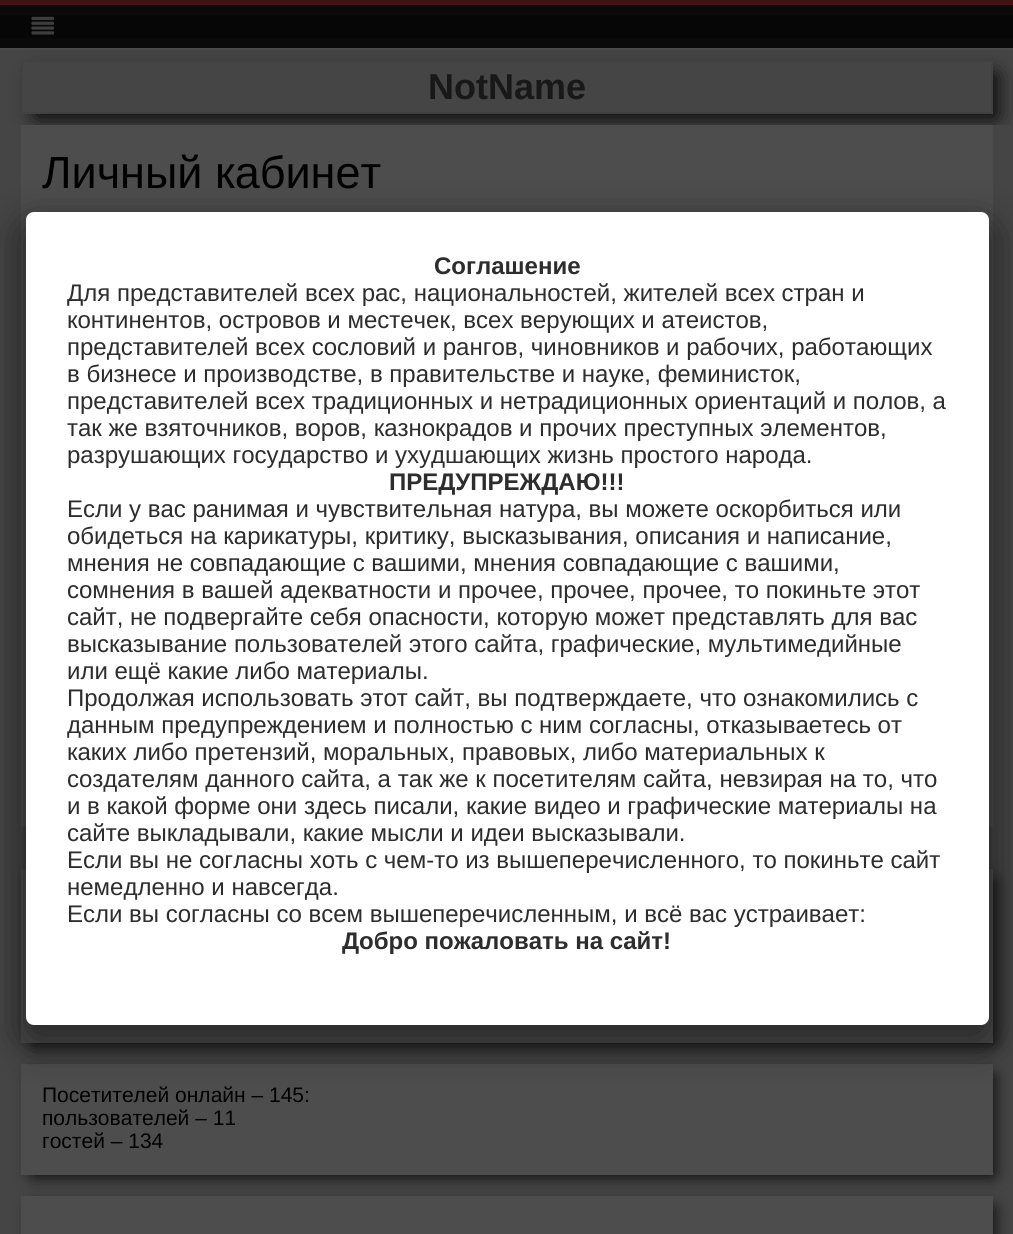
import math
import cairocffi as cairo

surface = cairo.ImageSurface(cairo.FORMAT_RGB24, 1013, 1234)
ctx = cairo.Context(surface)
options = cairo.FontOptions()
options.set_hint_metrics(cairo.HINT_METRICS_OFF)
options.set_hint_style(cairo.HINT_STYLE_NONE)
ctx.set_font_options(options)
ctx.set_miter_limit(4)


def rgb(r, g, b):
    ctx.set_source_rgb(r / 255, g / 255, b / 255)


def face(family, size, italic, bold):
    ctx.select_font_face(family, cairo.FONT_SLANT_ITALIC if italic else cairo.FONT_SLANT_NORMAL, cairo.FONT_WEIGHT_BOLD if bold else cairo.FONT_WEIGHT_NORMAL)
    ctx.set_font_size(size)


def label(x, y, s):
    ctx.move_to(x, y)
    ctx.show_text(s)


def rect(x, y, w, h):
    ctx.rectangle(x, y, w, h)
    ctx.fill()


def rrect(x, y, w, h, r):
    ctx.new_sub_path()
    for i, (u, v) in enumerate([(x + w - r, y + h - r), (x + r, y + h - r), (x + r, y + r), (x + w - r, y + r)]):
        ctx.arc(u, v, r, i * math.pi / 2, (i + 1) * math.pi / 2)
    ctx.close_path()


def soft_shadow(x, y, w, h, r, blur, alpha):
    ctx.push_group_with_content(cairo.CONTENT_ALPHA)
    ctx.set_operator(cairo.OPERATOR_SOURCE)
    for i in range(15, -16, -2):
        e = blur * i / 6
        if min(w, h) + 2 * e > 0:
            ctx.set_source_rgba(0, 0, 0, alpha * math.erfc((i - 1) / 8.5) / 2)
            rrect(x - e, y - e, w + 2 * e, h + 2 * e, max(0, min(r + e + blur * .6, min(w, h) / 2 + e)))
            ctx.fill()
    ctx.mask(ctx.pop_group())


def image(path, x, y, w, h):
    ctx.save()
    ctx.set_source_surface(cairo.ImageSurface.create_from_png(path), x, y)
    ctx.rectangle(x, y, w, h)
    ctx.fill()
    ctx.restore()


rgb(66, 19, 19)
ctx.paint()
rgb(69, 69, 69)
rect(0, 50, 1013, 75)
ctx.save()
ctx.set_fill_rule(cairo.FILL_RULE_EVEN_ODD)
ctx.new_path()
ctx.move_to(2, 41)
ctx.line_to(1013, 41)
ctx.line_to(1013, 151)
ctx.line_to(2, 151)
ctx.close_path()
ctx.move_to(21, 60)
ctx.line_to(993, 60)
ctx.line_to(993, 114)
ctx.line_to(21, 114)
ctx.close_path()
ctx.clip()
rgb(0, 0, 0)
soft_shadow(36, 75, 960, 42, 0, 11, 1)
ctx.restore()
rgb(10, 10, 10)
rect(0, 5, 1013, 43)
rgb(74, 74, 74)
rect(0, 48, 1013, 2)
rgb(6, 6, 6)
rect(0, 15, 1013, 23)
image('image0.png', 31, 16, 23, 19)
ctx.rectangle(22, 61, 970, 52)
rgb(65, 65, 65)
ctx.stroke()
face('Arimo', 36, 0, 1)
rgb(24, 24, 24)
label(428, 99, 'NotName')
rgb(69, 69, 69)
rect(0, 125, 1013, 1109)
rgb(77, 77, 77)
rect(21, 125, 972, 702)
face('Arimo', 45, 0, 0)
rgb(0, 0, 0)
label(42, 188, 'Личный кабинет')
rgb(0, 0, 0)
soft_shadow(33, 881, 960, 162, 0, 9, 1)
rgb(77, 77, 77)
rect(21, 869, 972, 174)
rgb(0, 0, 0)
soft_shadow(33, 1076, 960, 99, 0, 9, 1)
rgb(77, 77, 77)
rect(21, 1064, 972, 111)
face('Arimo', 21, 0, 0)
rgb(0, 0, 0)
label(42, 1102, 'Посетителей онлайн – 145:')
label(42, 1125, 'пользователей – 11')
label(42, 1148, 'гостей – 134')
rgb(0, 0, 0)
soft_shadow(33, 1208, 960, 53, 0, 9, 1)
rgb(77, 77, 77)
rect(21, 1196, 972, 38)
rgb(2, 2, 2)
soft_shadow(20, 221, 975, 825, 14, 19, 0.5)
rgb(255, 255, 255)
rrect(26, 212, 963, 813, 8)
ctx.fill()
face('Arimo', 24, 0, 1)
rgb(45, 45, 45)
label(434, 274, 'Соглашение')
face('Arimo', 24, 0, 0)
label(67, 301, 'Для представителей всех рас, национальностей, жителей всех стран и')
label(67, 328, 'континентов, островов и местечек, всех верующих и атеистов,')
label(67, 355, 'представителей всех сословий и рангов, чиновников и рабочих, работающих')
label(67, 382, 'в бизнесе и производстве, в правительстве и науке, феминисток,')
label(67, 409, 'представителей всех традиционных и нетрадиционных ориентаций и полов, а')
label(67, 436, 'так же взяточников, воров, казнокрадов и прочих преступных элементов,')
label(67, 463, 'разрушающих государство и ухудшающих жизнь простого народа.')
face('Arimo', 24, 0, 1)
label(389, 490, 'ПРЕДУПРЕЖДАЮ!!!')
face('Arimo', 24, 0, 0)
label(67, 517, 'Если у вас ранимая и чувствительная натура, вы можете оскорбиться или')
label(67, 544, 'обидеться на карикатуры, критику, высказывания, описания и написание,')
label(67, 571, 'мнения не совпадающие с вашими, мнения совпадающие с вашими,')
label(67, 598, 'сомнения в вашей адекватности и прочее, прочее, прочее, то покиньте этот')
label(67, 625, 'сайт, не подвергайте себя опасности, которую может представлять для вас')
label(67, 652, 'высказывание пользователей этого сайта, графические, мультимедийные')
label(67, 679, 'или ещё какие либо материалы.')
label(67, 706, 'Продолжая использовать этот сайт, вы подтверждаете, что ознакомились с')
label(67, 733, 'данным предупреждением и полностью с ним согласны, отказываетесь от')
label(67, 760, 'каких либо претензий, моральных, правовых, либо материальных к')
label(67, 787, 'создателям данного сайта, а так же к посетителям сайта, невзирая на то, что')
label(67, 814, 'и в какой форме они здесь писали, какие видео и графические материалы на')
label(67, 841, 'сайте выкладывали, какие мысли и идеи высказывали.')
label(67, 868, 'Если вы не согласны хоть с чем-то из вышеперечисленного, то покиньте сайт')
label(67, 895, 'немедленно и навсегда.')
label(67, 922, 'Если вы согласны со всем вышеперечисленным, и всё вас устраивает:')
face('Arimo', 24, 0, 1)
label(342, 949, 'Добро пожаловать на сайт!')
surface.write_to_png('render.png')
